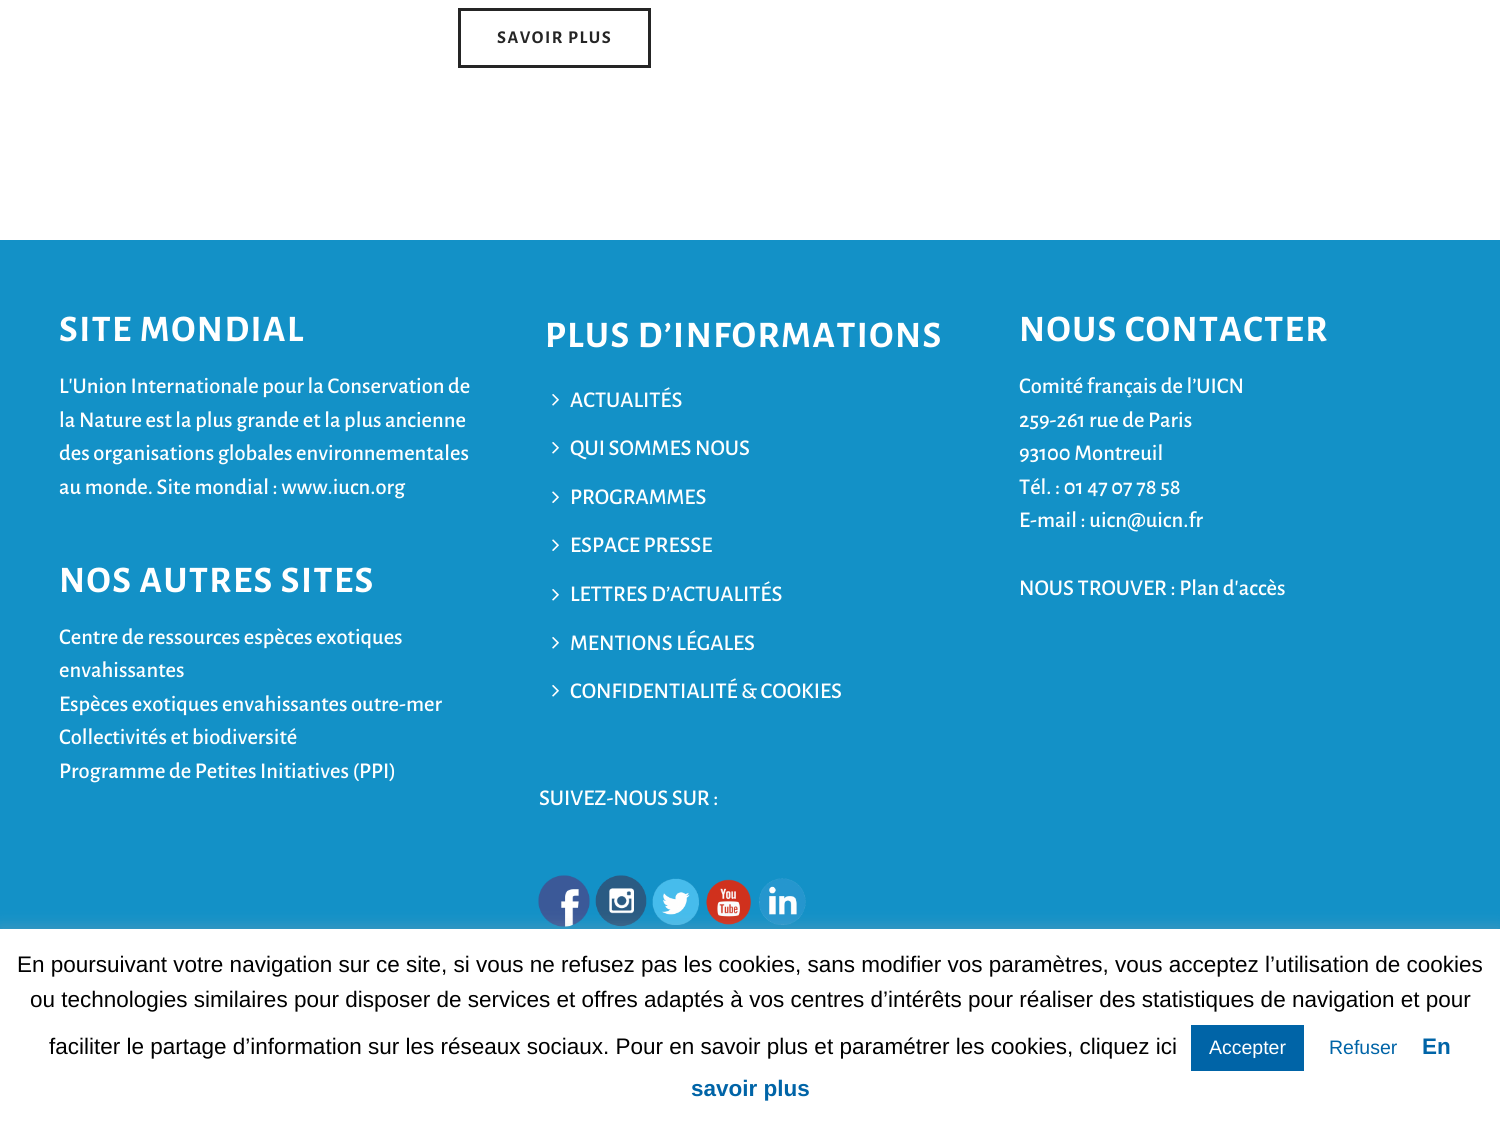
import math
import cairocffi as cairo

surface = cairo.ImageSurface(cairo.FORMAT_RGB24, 1500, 1123)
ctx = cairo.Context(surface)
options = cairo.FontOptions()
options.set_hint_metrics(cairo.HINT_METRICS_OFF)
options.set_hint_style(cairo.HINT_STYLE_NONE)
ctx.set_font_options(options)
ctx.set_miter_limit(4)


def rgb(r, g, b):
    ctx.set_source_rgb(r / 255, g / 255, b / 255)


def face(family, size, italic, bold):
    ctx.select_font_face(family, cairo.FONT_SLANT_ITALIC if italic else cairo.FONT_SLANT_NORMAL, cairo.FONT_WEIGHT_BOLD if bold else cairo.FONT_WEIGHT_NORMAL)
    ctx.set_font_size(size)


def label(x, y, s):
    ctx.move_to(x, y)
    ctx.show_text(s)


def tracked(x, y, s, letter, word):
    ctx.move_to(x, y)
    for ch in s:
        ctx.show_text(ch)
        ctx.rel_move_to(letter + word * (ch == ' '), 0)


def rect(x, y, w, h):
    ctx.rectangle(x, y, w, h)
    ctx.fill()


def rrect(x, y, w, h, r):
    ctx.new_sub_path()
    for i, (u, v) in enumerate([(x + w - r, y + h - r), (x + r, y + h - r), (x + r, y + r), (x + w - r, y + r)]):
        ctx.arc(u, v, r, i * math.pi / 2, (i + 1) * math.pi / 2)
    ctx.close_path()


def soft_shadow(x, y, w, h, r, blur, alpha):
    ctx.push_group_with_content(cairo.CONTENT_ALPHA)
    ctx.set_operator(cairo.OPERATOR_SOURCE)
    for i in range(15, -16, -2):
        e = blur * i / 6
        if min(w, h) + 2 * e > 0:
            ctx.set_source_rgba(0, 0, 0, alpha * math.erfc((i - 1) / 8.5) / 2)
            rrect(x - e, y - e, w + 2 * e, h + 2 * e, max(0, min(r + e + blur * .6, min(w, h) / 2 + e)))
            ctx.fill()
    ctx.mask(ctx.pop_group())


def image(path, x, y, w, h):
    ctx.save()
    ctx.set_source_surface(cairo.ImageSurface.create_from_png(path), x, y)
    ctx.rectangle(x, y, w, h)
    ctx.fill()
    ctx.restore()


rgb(255, 255, 255)
ctx.paint()
ctx.rectangle(459.5, 9.5, 190, 57)
rgb(37, 37, 37)
ctx.set_line_width(3)
ctx.stroke()
face('Alegreya Sans', 18, 0, 1)
tracked(497, 43, 'SAVOIR PLUS', 1.5, 0)
rgb(19, 145, 199)
rect(0, 240, 1500, 689)
face('Alegreya Sans', 37.5, 0, 1)
rgb(255, 255, 255)
tracked(59, 341, 'SITE MONDIAL', 1.5, 0)
face('Alegreya Sans Medium', 22.5, 0, 0)
label(59, 393, 'L\'Union Internationale pour la Conservation de')
label(59, 427, 'la Nature est la plus grande et la plus ancienne')
label(59, 460, 'des organisations globales environnementales')
label(59, 494, 'au monde. Site mondial : www.iucn.org')
face('Alegreya Sans', 37.5, 0, 1)
tracked(59, 592, 'NOS AUTRES SITES', 1.5, 0)
face('Alegreya Sans Medium', 22.5, 0, 0)
label(59, 644, 'Centre de ressources espèces exotiques')
label(59, 677, 'envahissantes')
label(59, 711, 'Espèces exotiques envahissantes outre-mer')
label(59, 744, 'Collectivités et biodiversité')
label(59, 778, 'Programme de Petites Initiatives (PPI)')
face('Alegreya Sans', 37.5, 0, 1)
tracked(545, 347, 'PLUS D’INFORMATIONS', 1.5, 0)
image('image0.png', 552, 394, 7, 12)
face('Alegreya Sans Medium', 22.5, 0, 0)
label(570, 407, 'ACTUALITÉS')
image('image0.png', 552, 442, 7, 12)
label(570, 455, 'QUI SOMMES NOUS')
image('image1.png', 552, 491, 7, 12)
label(570, 504, 'PROGRAMMES')
image('image1.png', 552, 539, 7, 12)
label(570, 552, 'ESPACE PRESSE')
image('image0.png', 552, 589, 7, 12)
label(570, 601, 'LETTRES D’ACTUALITÉS')
image('image0.png', 552, 637, 7, 12)
label(570, 650, 'MENTIONS LÉGALES')
image('image0.png', 552, 685, 7, 12)
label(570, 698, 'CONFIDENTIALITÉ & COOKIES')
label(539, 805, 'SUIVEZ-NOUS SUR :')
image('image2.png', 538, 875, 52, 52)
image('image3.png', 595, 875, 52, 52)
image('image4.png', 652, 878, 47, 47)
image('image5.png', 706, 879, 45, 46)
image('image6.png', 759, 878, 47, 47)
face('Alegreya Sans', 37.5, 0, 1)
tracked(1019, 341, 'NOUS CONTACTER', 1.5, 0)
face('Alegreya Sans Medium', 22.5, 0, 0)
label(1019, 393, 'Comité français de l’UICN')
label(1019, 427, '259-261 rue de Paris')
label(1019, 460, '93100 Montreuil')
label(1019, 494, 'Tél. : 01 47 07 78 58')
label(1019, 527, 'E-mail : uicn@uicn.fr')
label(1019, 595, 'NOUS TROUVER : Plan d\'accès')
rgb(172, 171, 171)
soft_shadow(0, 927, 1500, 195, 0, 7.5, 0.3)
rgb(255, 255, 255)
rect(0, 929, 1500, 194)
face('Liberation Sans', 22.5, 0, 0)
rgb(0, 0, 0)
label(17, 972, 'En poursuivant votre navigation sur ce site, si vous ne refusez pas les cookies, sans modifier vos paramètres, vous acceptez l’utilisation de cookies')
label(30, 1007, 'ou technologies similaires pour disposer de services et offres adaptés à vos centres d’intérêts pour réaliser des statistiques de navigation et pour')
label(49, 1054, 'faciliter le partage d’information sur les réseaux sociaux. Pour en savoir plus et paramétrer les cookies, cliquez ici')
rgb(0, 100, 167)
rect(1191, 1025, 113, 46)
face('Liberation Sans', 19.5, 0, 0)
rgb(255, 255, 255)
label(1209, 1054, 'Accepter')
rgb(0, 100, 167)
label(1329, 1054, 'Refuser')
face('Liberation Sans', 22.5, 0, 1)
label(1422, 1054, 'En')
label(691, 1096, 'savoir plus')
surface.write_to_png('render.png')
